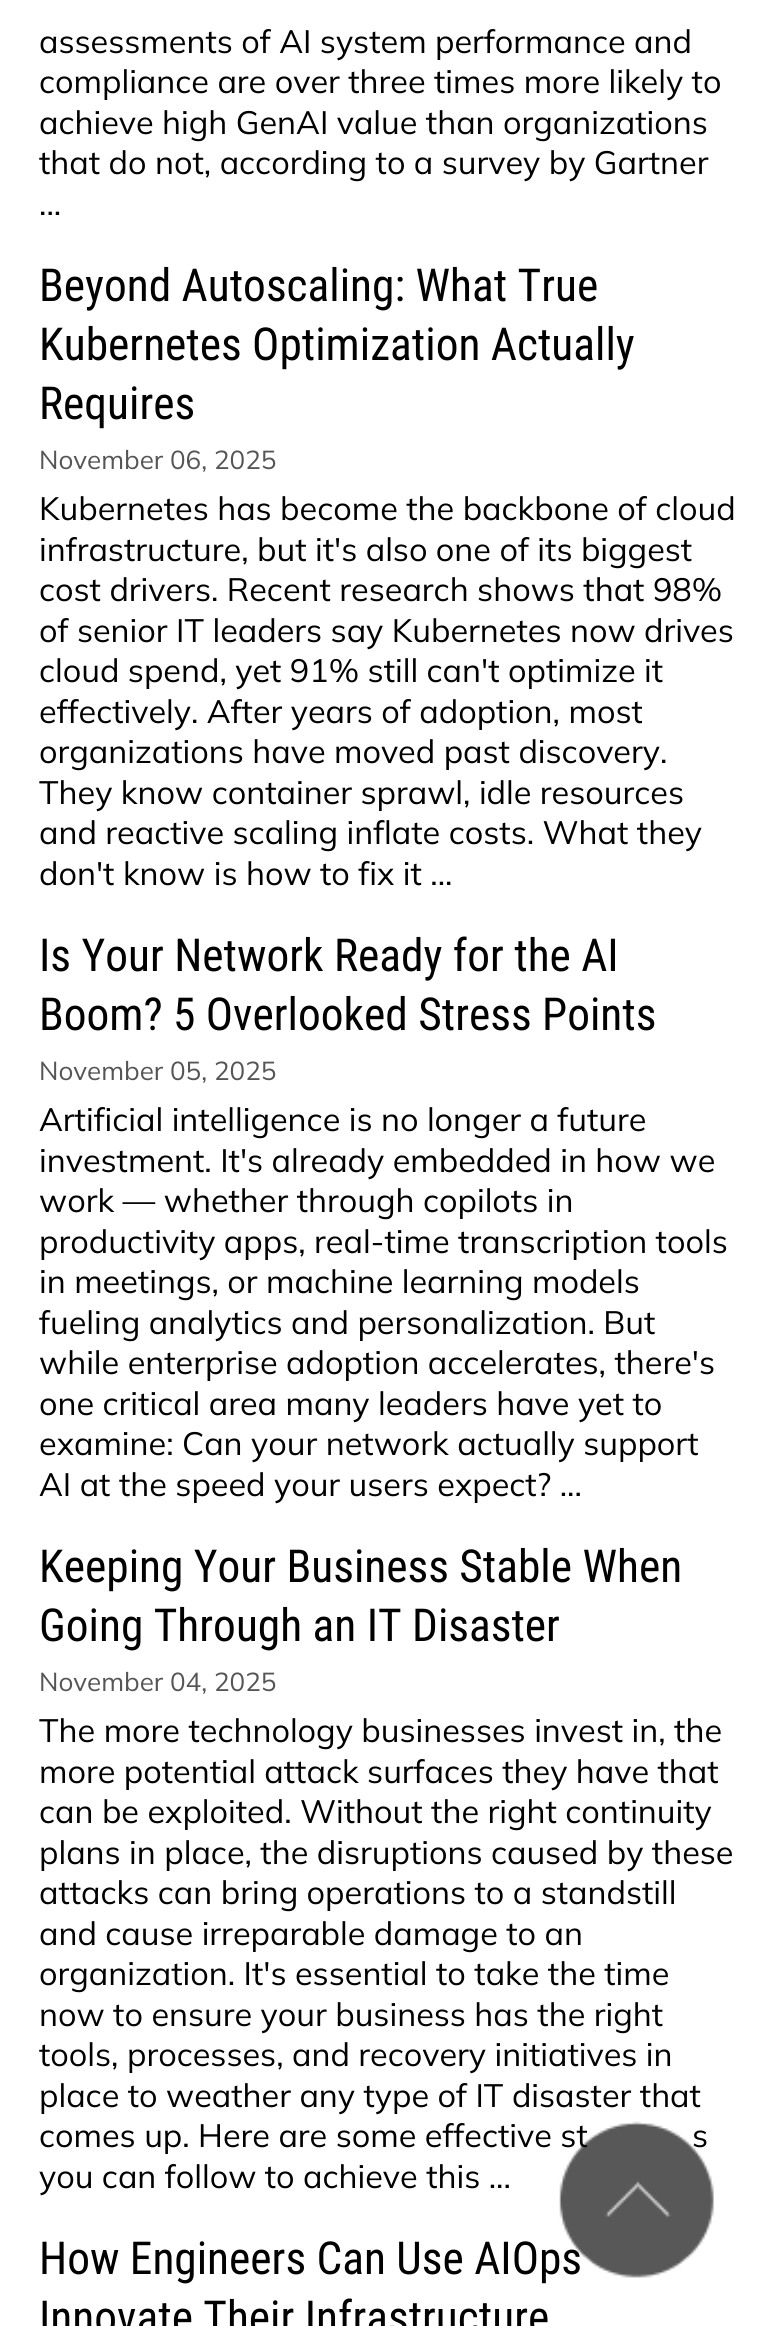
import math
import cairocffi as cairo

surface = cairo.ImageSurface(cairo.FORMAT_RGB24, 772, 2326)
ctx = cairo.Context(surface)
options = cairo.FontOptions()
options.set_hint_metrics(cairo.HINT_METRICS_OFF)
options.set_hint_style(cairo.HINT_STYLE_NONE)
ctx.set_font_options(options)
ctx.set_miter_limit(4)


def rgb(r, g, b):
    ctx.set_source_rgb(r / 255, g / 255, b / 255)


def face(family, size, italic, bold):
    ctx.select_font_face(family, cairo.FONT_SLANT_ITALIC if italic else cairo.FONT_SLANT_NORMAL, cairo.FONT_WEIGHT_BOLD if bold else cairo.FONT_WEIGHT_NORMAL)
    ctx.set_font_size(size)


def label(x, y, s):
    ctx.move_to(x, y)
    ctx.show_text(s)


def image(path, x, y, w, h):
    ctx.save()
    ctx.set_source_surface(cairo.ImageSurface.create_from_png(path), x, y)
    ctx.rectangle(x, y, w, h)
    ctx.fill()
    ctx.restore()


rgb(255, 255, 255)
ctx.paint()
face('Mulish ExtraLight', 32.4, 0, 0)
rgb(0, 0, 0)
label(39, 53, 'assessments of AI system performance and')
label(39, 93, 'compliance are over three times more likely to')
label(39, 134, 'achieve high GenAI value than organizations')
label(39, 174, 'that do not, according to a survey by Gartner')
label(39, 215, '...')
face('Roboto Condensed', 45.4, 0, 0)
label(39, 301, 'Beyond Autoscaling: What True')
label(39, 360, 'Kubernetes Optimization Actually')
label(39, 419, 'Requires')
face('Mulish ExtraLight', 26, 0, 0)
rgb(85, 85, 85)
label(39, 469, 'November 06, 2025')
face('Mulish ExtraLight', 32.4, 0, 0)
rgb(0, 0, 0)
label(39, 520, 'Kubernetes has become the backbone of cloud')
label(39, 561, 'infrastructure, but it\'s also one of its biggest')
label(39, 601, 'cost drivers. Recent research shows that 98%')
label(39, 642, 'of senior IT leaders say Kubernetes now drives')
label(39, 682, 'cloud spend, yet 91% still can\'t optimize it')
label(39, 723, 'effectively. After years of adoption, most')
label(39, 763, 'organizations have moved past discovery.')
label(39, 804, 'They know container sprawl, idle resources')
label(39, 844, 'and reactive scaling inflate costs. What they')
label(39, 885, 'don\'t know is how to fix it ...')
face('Roboto Condensed', 45.4, 0, 0)
label(39, 971, 'Is Your Network Ready for the AI')
label(39, 1030, 'Boom? 5 Overlooked Stress Points')
face('Mulish ExtraLight', 26, 0, 0)
rgb(85, 85, 85)
label(39, 1080, 'November 05, 2025')
face('Mulish ExtraLight', 32.4, 0, 0)
rgb(0, 0, 0)
label(39, 1131, 'Artificial intelligence is no longer a future')
label(39, 1172, 'investment. It\'s already embedded in how we')
label(39, 1212, 'work — whether through copilots in')
label(39, 1253, 'productivity apps, real-time transcription tools')
label(39, 1293, 'in meetings, or machine learning models')
label(39, 1334, 'fueling analytics and personalization. But')
label(39, 1374, 'while enterprise adoption accelerates, there\'s')
label(39, 1415, 'one critical area many leaders have yet to')
label(39, 1455, 'examine: Can your network actually support')
label(39, 1496, 'AI at the speed your users expect? ...')
face('Roboto Condensed', 45.4, 0, 0)
label(39, 1582, 'Keeping Your Business Stable When')
label(39, 1641, 'Going Through an IT Disaster')
face('Mulish ExtraLight', 26, 0, 0)
rgb(85, 85, 85)
label(39, 1691, 'November 04, 2025')
face('Mulish ExtraLight', 32.4, 0, 0)
rgb(0, 0, 0)
label(39, 1742, 'The more technology businesses invest in, the')
label(39, 1783, 'more potential attack surfaces they have that')
label(39, 1823, 'can be exploited. Without the right continuity')
label(39, 1864, 'plans in place, the disruptions caused by these')
label(39, 1904, 'attacks can bring operations to a standstill')
label(39, 1945, 'and cause irreparable damage to an')
label(39, 1985, 'organization. It\'s essential to take the time')
label(39, 2026, 'now to ensure your business has the right')
label(39, 2066, 'tools, processes, and recovery initiatives in')
label(39, 2107, 'place to weather any type of IT disaster that')
label(39, 2147, 'comes up. Here are some effective st')
label(692, 2147, 's')
label(39, 2188, 'you can follow to achieve this ...')
face('Roboto Condensed', 45.4, 0, 0)
label(39, 2274, 'How Engineers Can Use AIOps')
label(39, 2333, 'Innovate Their Infrastructure')
image('image0.png', 559, 2121, 155, 157)
surface.write_to_png('render.png')
